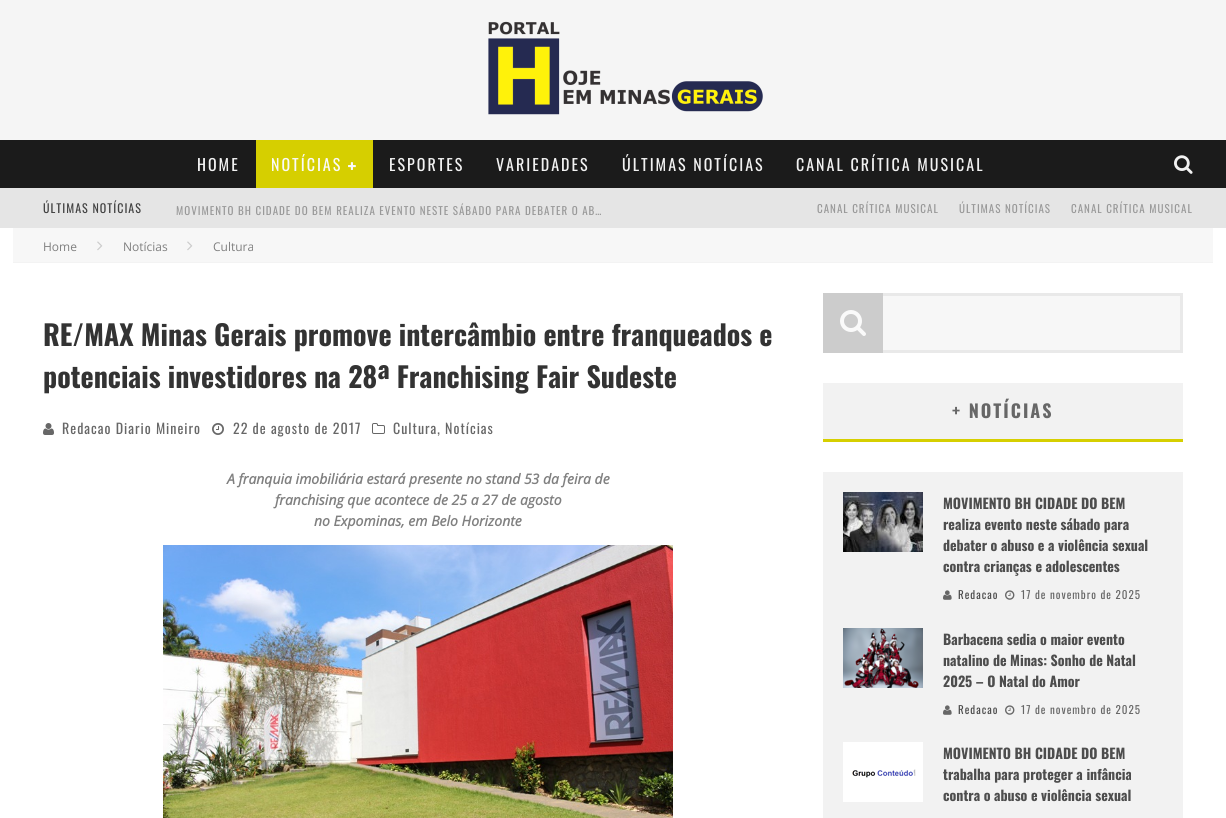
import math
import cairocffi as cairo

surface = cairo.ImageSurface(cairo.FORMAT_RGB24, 1226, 818)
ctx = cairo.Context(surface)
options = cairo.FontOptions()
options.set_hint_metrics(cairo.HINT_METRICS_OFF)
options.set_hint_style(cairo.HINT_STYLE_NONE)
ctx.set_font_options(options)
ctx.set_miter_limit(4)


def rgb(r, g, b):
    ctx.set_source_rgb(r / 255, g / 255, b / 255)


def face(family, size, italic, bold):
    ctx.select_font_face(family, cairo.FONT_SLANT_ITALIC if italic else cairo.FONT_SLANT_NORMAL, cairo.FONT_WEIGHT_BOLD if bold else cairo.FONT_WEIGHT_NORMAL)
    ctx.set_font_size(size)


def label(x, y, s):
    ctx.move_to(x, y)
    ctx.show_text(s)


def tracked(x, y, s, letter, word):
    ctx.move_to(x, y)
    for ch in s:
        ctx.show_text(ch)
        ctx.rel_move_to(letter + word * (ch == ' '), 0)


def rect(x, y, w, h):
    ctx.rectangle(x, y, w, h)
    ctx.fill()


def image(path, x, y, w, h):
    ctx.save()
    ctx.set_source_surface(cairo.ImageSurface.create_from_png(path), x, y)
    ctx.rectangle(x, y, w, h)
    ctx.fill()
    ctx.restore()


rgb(255, 255, 255)
ctx.paint()
rgb(245, 245, 245)
rect(0, 0, 1226, 140)
image('image0.png', 488, 21, 275, 94)
rgb(27, 27, 27)
rect(0, 140, 1226, 48)
face('Oswald', 16, 0, 0)
rgb(242, 242, 242)
tracked(197, 171, 'HOME', 2, 0)
rgb(214, 207, 0)
rect(256, 140, 117, 48)
rgb(250, 250, 250)
tracked(271, 171, 'NOTÍCIAS', 2, 0)
image('image1.png', 348, 162, 8, 8)
rgb(242, 242, 242)
tracked(389, 171, 'ESPORTES', 2, 0)
tracked(496, 171, 'VARIEDADES', 2, 0)
tracked(622, 171, 'ÚLTIMAS NOTÍCIAS', 2, 0)
tracked(796, 171, 'CANAL CRÍTICA MUSICAL', 2, 0)
image('image2.png', 1174, 155, 19, 19)
rgb(229, 229, 229)
rect(0, 188, 1226, 40)
face('Oswald', 12, 0, 0)
rgb(66, 66, 66)
tracked(43, 213, 'ÚLTIMAS NOTÍCIAS', 1, 0)
face('Oswald', 11, 0, 0)
rgb(153, 153, 153)
tracked(176, 215, 'MOVIMENTO BH CIDADE DO BEM REALIZA EVENTO NESTE SÁBADO PARA DEBATER O AB…', 1, 0)
tracked(817, 213, 'CANAL CRÍTICA MUSICAL', 1, 0)
tracked(959, 213, 'ÚLTIMAS NOTÍCIAS', 1, 0)
tracked(1071, 213, 'CANAL CRÍTICA MUSICAL', 1, 0)
rgb(247, 247, 247)
rect(13, 228, 1200, 34)
rgb(243, 243, 243)
rect(13, 262, 1200, 1)
face('Open Sans', 12, 0, 0)
rgb(128, 128, 128)
label(43, 251, 'Home')
image('image3.png', 97, 241, 6, 10)
label(123, 251, 'Notícias')
image('image3.png', 187, 241, 6, 10)
label(213, 251, 'Cultura')
face('Oswald', 28, 0, 1)
rgb(51, 51, 51)
label(43, 346, 'RE/MAX Minas Gerais promove intercâmbio entre franqueados e')
label(43, 388, 'potenciais investidores na 28ª Franchising Fair Sudeste')
image('image4.png', 43, 423, 11, 12)
face('Oswald', 14, 0, 0)
rgb(103, 103, 103)
tracked(62, 434, 'Redacao Diario Mineiro', 1, 0)
image('image5.png', 212, 423, 12, 12)
tracked(233, 434, '22 de agosto de 2017', 1, 0)
image('image6.png', 372, 423, 13, 11)
tracked(393, 434, 'Cultura, Notícias', 1, 0)
face('Open Sans', 14, 1, 1)
rgb(128, 128, 128)
label(227, 484, 'A franquia imobiliária estará presente no stand 53 da feira de')
label(275, 505, 'franchising que acontece de 25 a 27 de agosto')
label(314, 526, 'no Expominas, em Belo Horizonte')
image('image7.png', 163, 545, 510, 273)
rgb(247, 247, 247)
rect(883, 296, 297, 54)
ctx.rectangle(824.5, 294.5, 357, 57)
rgb(233, 233, 233)
ctx.set_line_width(3)
ctx.stroke()
rgb(204, 204, 204)
rect(823, 293, 60, 60)
image('image8.png', 840, 310, 26, 26)
rgb(242, 242, 242)
rect(823, 383, 360, 56)
rgb(214, 207, 0)
rect(823, 439, 360, 3)
face('Oswald', 18, 0, 1)
rgb(103, 103, 103)
tracked(952, 418, '+ NOTÍCIAS', 2, 0)
rgb(242, 242, 242)
rect(823, 472, 360, 346)
image('image9.png', 843, 492, 80, 60)
face('Oswald', 14, 0, 1)
rgb(77, 77, 77)
label(943, 509, 'MOVIMENTO BH CIDADE DO BEM')
label(943, 530, 'realiza evento neste sábado para')
label(943, 551, 'debater o abuso e a violência sexual')
label(943, 572, 'contra crianças e adolescentes')
image('image10.png', 943, 590, 9, 10)
face('Oswald', 11, 0, 0)
tracked(958, 599, 'Redacao', 1, 0)
image('image11.png', 1005, 590, 10, 10)
rgb(103, 103, 103)
tracked(1021, 599, '17 de novembro de 2025', 1, 0)
image('image12.png', 843, 628, 80, 60)
face('Oswald', 14, 0, 1)
rgb(77, 77, 77)
label(943, 645, 'Barbacena sedia o maior evento')
label(943, 666, 'natalino de Minas: Sonho de Natal')
label(943, 687, '2025 – O Natal do Amor')
image('image10.png', 943, 705, 9, 10)
face('Oswald', 11, 0, 0)
tracked(958, 714, 'Redacao', 1, 0)
image('image11.png', 1005, 705, 10, 10)
rgb(103, 103, 103)
tracked(1021, 714, '17 de novembro de 2025', 1, 0)
image('image13.png', 843, 742, 80, 60)
face('Oswald', 14, 0, 1)
rgb(77, 77, 77)
label(943, 759, 'MOVIMENTO BH CIDADE DO BEM')
label(943, 780, 'trabalha para proteger a infância')
label(943, 801, 'contra o abuso e violência sexual')
surface.write_to_png('render.png')
